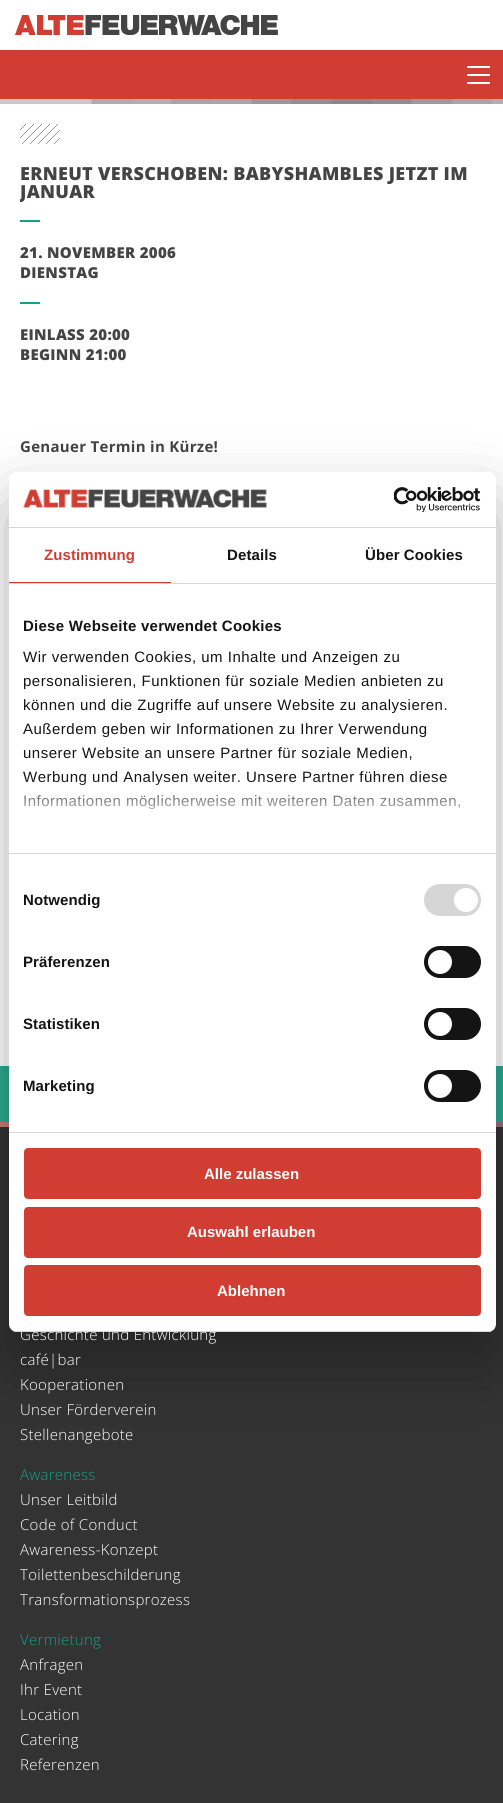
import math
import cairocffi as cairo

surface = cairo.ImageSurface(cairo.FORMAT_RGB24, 503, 1803)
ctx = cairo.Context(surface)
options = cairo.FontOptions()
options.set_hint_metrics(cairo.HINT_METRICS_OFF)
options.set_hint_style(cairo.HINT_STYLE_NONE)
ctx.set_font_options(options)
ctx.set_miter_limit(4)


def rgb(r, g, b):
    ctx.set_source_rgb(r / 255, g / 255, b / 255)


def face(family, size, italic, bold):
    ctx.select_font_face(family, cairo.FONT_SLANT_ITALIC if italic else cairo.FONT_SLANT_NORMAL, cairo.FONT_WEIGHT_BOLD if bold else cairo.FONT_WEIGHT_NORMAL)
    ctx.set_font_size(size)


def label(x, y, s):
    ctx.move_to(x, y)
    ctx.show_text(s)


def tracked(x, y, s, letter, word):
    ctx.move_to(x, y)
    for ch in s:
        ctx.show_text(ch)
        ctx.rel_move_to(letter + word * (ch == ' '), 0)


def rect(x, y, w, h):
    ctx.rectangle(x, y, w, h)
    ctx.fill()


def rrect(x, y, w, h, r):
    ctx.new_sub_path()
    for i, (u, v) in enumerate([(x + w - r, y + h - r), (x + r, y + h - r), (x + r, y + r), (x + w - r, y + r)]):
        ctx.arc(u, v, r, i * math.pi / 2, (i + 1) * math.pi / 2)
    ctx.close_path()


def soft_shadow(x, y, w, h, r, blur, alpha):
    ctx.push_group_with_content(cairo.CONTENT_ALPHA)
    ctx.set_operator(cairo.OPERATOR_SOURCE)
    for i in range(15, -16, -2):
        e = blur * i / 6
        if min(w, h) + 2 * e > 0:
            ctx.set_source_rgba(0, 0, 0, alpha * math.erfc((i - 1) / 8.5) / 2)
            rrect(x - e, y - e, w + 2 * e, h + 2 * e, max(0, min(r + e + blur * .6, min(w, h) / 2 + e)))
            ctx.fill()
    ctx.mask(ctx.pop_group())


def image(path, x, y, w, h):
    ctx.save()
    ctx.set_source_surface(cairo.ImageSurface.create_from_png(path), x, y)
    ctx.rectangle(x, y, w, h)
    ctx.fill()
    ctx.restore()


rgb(209, 61, 50)
ctx.paint()
rgb(255, 255, 255)
rect(0, 0, 503, 50)
image('image0.png', 15, 15, 263, 20)
rect(467, 74, 23, 2)
rect(467, 66, 23, 2)
rect(467, 82, 23, 2)
rgb(200, 200, 200)
rect(0, 99, 91, 5)
image('image1.png', 91, 99, 412, 5)
rgb(255, 255, 255)
rect(0, 104, 503, 962)
image('image2.png', 20, 124, 40, 20)
face('Open Sans ExtraBold', 18, 0, 0)
rgb(68, 68, 68)
tracked(20, 180, 'ERNEUT VERSCHOBEN: BABYSHAMBLES JETZT IM', 0.3, 0)
ctx.save()
ctx.rectangle(20, 104, 463, 942)
ctx.clip()
tracked(20, 198, 'JANUAR', 0.3, 0)
ctx.restore()
rgb(21, 161, 134)
rect(20, 220, 20, 2)
face('Open Sans ExtraBold', 15, 0, 0)
rgb(68, 68, 68)
tracked(20, 258, '21. NOVEMBER 2006', 0.3, 0)
tracked(20, 278, 'DIENSTAG', 0.3, 0)
rgb(21, 161, 134)
rect(20, 302, 20, 2)
rgb(68, 68, 68)
tracked(20, 340, 'EINLASS 20:00', 0.3, 0)
tracked(20, 360, 'BEGINN 21:00', 0.3, 0)
face('Open Sans', 15, 0, 1)
tracked(20, 452, 'Genauer Termin in Kürze!', 0.3, 0)
rgb(44, 170, 146)
rect(0, 1066, 503, 56)
image('image5.png', 0, 1122, 503, 5)
rgb(51, 51, 51)
rect(0, 1127, 503, 676)
rgb(0, 0, 0)
soft_shadow(9, 504, 487, 860, 8, 34, 0.3)
rgb(255, 255, 255)
rrect(9, 472, 487, 860, 8)
ctx.fill()
rgb(214, 214, 214)
rect(9, 527, 487, 1)
image('image3.png', 23, 489, 245, 19)
image('image4.png', 394, 487, 87, 25)
rect(9, 583, 487, 1)
rgb(209, 61, 50)
rect(9, 582, 162, 1)
face('Liberation Sans', 15, 0, 1)
tracked(44, 560, 'Zustimmung', 0.1, 0)
rgb(20, 20, 20)
tracked(227, 560, 'Details', 0.1, 0)
tracked(365, 560, 'Über Cookies', 0.1, 0)
rgb(214, 214, 214)
rect(9, 853, 487, 1)
rgb(20, 20, 20)
tracked(23, 631, 'Diese Webseite verwendet Cookies', 0.25, 0)
face('Liberation Sans', 15, 0, 0)
tracked(23, 662, 'Wir verwenden Cookies, um Inhalte und Anzeigen zu', 0.5, 0)
tracked(23, 686, 'personalisieren, Funktionen für soziale Medien anbieten zu', 0.5, 0)
tracked(23, 710, 'können und die Zugriffe auf unsere Website zu analysieren.', 0.5, 0)
tracked(23, 734, 'Außerdem geben wir Informationen zu Ihrer Verwendung', 0.5, 0)
tracked(23, 758, 'unserer Website an unsere Partner für soziale Medien,', 0.5, 0)
tracked(23, 782, 'Werbung und Analysen weiter. Unsere Partner führen diese', 0.5, 0)
tracked(23, 806, 'Informationen möglicherweise mit weiteren Daten zusammen,', 0.5, 0)
gradient = cairo.LinearGradient(246, 853, 246, 778)
gradient.add_color_stop_rgba(0, 1, 1, 1, 1)
gradient.add_color_stop_rgba(0.5, 1, 1, 1, 0.8)
gradient.add_color_stop_rgba(1, 1, 1, 1, 0)
ctx.set_source(gradient)
rect(24, 779, 436, 31)
rgb(214, 214, 214)
rect(9, 1132, 487, 1)
face('Liberation Sans', 15, 0, 1)
rgb(20, 20, 20)
tracked(23, 905, 'Notwendig', 0.1, 0)
rgb(214, 214, 214)
rrect(424, 884, 57, 32, 16)
ctx.fill()
rgb(255, 255, 255)
ctx.arc(466, 900, 12, 0, 2 * math.pi)
ctx.fill()
rgb(20, 20, 20)
tracked(23, 967, 'Präferenzen', 0.1, 0)
rrect(424, 946, 57, 32, 16)
ctx.fill()
rgb(255, 255, 255)
ctx.arc(440, 962, 12, 0, 2 * math.pi)
ctx.fill()
rgb(20, 20, 20)
tracked(23, 1029, 'Statistiken', 0.1, 0)
rrect(424, 1008, 57, 32, 16)
ctx.fill()
rgb(255, 255, 255)
ctx.arc(440, 1024, 12, 0, 2 * math.pi)
ctx.fill()
rgb(20, 20, 20)
tracked(23, 1091, 'Marketing', 0.1, 0)
rrect(424, 1070, 57, 32, 16)
ctx.fill()
rgb(255, 255, 255)
ctx.arc(440, 1086, 12, 0, 2 * math.pi)
ctx.fill()
face('Open Sans Light', 15, 0, 0)
tracked(20, 1340, 'Geschichte und Entwicklung', 0.3, 0)
ctx.save()
rrect(9, 472, 487, 860, 8)
ctx.clip()
rgb(214, 214, 214)
rect(9, 1331, 487, 1)
ctx.restore()
rgb(209, 61, 50)
rrect(25, 1149, 455, 49, 3)
ctx.fill_preserve()
ctx.stroke()
face('Liberation Sans', 15, 0, 1)
rgb(255, 255, 255)
label(204, 1179, 'Alle zulassen')
rgb(209, 61, 50)
rrect(25, 1208, 455, 49, 3)
ctx.fill_preserve()
ctx.stroke()
rgb(255, 255, 255)
label(187, 1237, 'Auswahl erlauben')
rgb(209, 61, 50)
rrect(25, 1266, 455, 49, 3)
ctx.fill_preserve()
ctx.stroke()
rgb(255, 255, 255)
label(217, 1296, 'Ablehnen')
face('Open Sans Light', 15, 0, 0)
tracked(20, 1365, 'café|bar', 0.3, 0)
tracked(20, 1390, 'Kooperationen', 0.3, 0)
tracked(20, 1415, 'Unser Förderverein', 0.3, 0)
tracked(20, 1440, 'Stellenangebote', 0.3, 0)
rgb(21, 161, 134)
tracked(20, 1480, 'Awareness', 0.3, 0)
rgb(255, 255, 255)
tracked(20, 1505, 'Unser Leitbild', 0.3, 0)
tracked(20, 1530, 'Code of Conduct', 0.3, 0)
tracked(20, 1555, 'Awareness-Konzept', 0.3, 0)
tracked(20, 1580, 'Toilettenbeschilderung', 0.3, 0)
tracked(20, 1605, 'Transformationsprozess', 0.3, 0)
rgb(21, 161, 134)
tracked(20, 1645, 'Vermietung', 0.3, 0)
rgb(255, 255, 255)
tracked(20, 1670, 'Anfragen', 0.3, 0)
tracked(20, 1695, 'Ihr Event', 0.3, 0)
tracked(20, 1720, 'Location', 0.3, 0)
tracked(20, 1745, 'Catering', 0.3, 0)
tracked(20, 1770, 'Referenzen', 0.3, 0)
surface.write_to_png('render.png')
